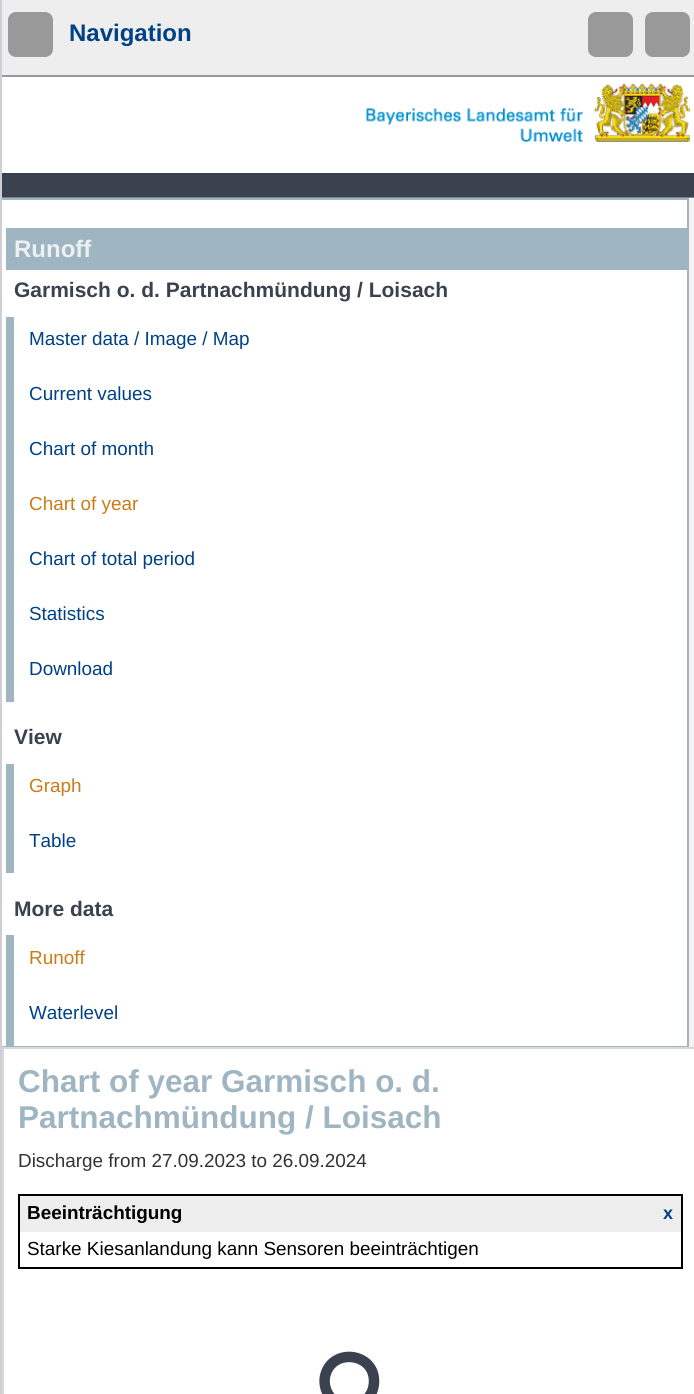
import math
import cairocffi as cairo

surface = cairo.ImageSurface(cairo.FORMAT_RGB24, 694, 1394)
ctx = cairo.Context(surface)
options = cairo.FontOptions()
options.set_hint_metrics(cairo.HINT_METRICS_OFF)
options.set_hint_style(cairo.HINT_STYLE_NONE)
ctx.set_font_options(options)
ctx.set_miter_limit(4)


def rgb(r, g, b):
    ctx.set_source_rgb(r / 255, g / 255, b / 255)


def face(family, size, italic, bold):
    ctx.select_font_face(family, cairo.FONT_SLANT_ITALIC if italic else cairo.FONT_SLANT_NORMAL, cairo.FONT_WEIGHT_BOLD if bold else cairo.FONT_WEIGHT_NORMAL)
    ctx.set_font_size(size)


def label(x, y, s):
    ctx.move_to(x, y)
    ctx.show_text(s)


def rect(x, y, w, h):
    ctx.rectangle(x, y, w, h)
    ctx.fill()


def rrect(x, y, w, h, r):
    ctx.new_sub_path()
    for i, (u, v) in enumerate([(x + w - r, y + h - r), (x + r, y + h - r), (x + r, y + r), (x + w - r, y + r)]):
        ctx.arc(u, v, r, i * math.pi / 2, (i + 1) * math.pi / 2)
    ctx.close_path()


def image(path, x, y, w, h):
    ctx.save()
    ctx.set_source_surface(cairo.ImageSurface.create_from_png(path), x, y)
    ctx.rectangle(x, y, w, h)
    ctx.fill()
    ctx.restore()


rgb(255, 255, 255)
ctx.paint()
rgb(206, 207, 212)
rect(0, 0, 2, 1394)
rgb(238, 238, 238)
rect(2, 0, 692, 75)
rgb(153, 153, 153)
rect(2, 75, 692, 2)
rrect(8, 12, 45, 45, 8)
ctx.fill()
face('Liberation Sans', 24, 0, 1)
rgb(0, 65, 133)
label(69, 41, 'Navigation')
rgb(153, 153, 153)
rrect(588, 12, 45, 45, 8)
ctx.fill()
rrect(645, 12, 45, 45, 8)
ctx.fill()
image('image0.png', 366, 83, 324, 59)
rgb(59, 66, 79)
rect(2, 173, 692, 24)
rgb(122, 130, 145)
rect(2, 197, 692, 1)
rgb(242, 242, 242)
rect(689, 198, 5, 849)
rgb(159, 181, 193)
rect(2, 198, 687, 2)
rect(687, 198, 2, 849)
rect(2, 1046, 687, 1)
rect(6, 228, 681, 42)
rgb(237, 241, 243)
label(14, 257, 'Runoff')
face('Liberation Sans', 21, 0, 1)
rgb(59, 66, 79)
label(14, 297, 'Garmisch o. d. Partnachmündung / Loisach')
rgb(159, 181, 193)
rect(6, 317, 8, 385)
face('Liberation Sans', 18.9, 0, 0)
rgb(0, 65, 133)
label(29, 345, 'Master data / Image / Map')
label(29, 400, 'Current values')
label(29, 455, 'Chart of month')
rgb(204, 123, 23)
label(29, 510, 'Chart of year')
rgb(0, 65, 133)
label(29, 565, 'Chart of total period')
label(29, 620, 'Statistics')
label(29, 675, 'Download')
face('Liberation Sans', 21, 0, 1)
rgb(59, 66, 79)
label(14, 744, 'View')
rgb(159, 181, 193)
rect(6, 764, 8, 109)
face('Liberation Sans', 18.9, 0, 0)
rgb(204, 123, 23)
label(29, 792, 'Graph')
rgb(0, 65, 133)
label(29, 847, 'Table')
face('Liberation Sans', 21, 0, 1)
rgb(59, 66, 79)
label(14, 916, 'More data')
rgb(159, 181, 193)
rect(6, 935, 8, 111)
face('Liberation Sans', 18.9, 0, 0)
rgb(204, 123, 23)
label(29, 964, 'Runoff')
rgb(0, 65, 133)
label(29, 1019, 'Waterlevel')
ctx.rectangle(3, 1048, 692, 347)
rgb(215, 215, 215)
ctx.stroke()
face('Liberation Sans', 31.5, 0, 1)
rgb(159, 181, 193)
label(18, 1092, 'Chart of year Garmisch o. d.')
label(18, 1128, 'Partnachmündung / Loisach')
face('Liberation Sans', 18.9, 0, 0)
rgb(51, 51, 51)
label(18, 1167, 'Discharge from 27.09.2023 to 26.09.2024')
ctx.rectangle(19, 1195, 663, 73)
rgb(0, 0, 0)
ctx.stroke()
rgb(238, 238, 238)
rect(20, 1196, 661, 36)
face('Liberation Sans', 18.9, 0, 1)
rgb(0, 0, 0)
label(27, 1219, 'Beeinträchtigung')
face('Liberation Sans', 18, 0, 1)
rgb(0, 65, 133)
label(663, 1219, 'x')
face('Liberation Sans', 18.9, 0, 0)
rgb(0, 0, 0)
label(27, 1255, 'Starke Kiesanlandung kann Sensoren beeinträchtigen')
ctx.new_path()
ctx.move_to(332, 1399)
ctx.curve_to(326, 1393, 323.5, 1384.5, 325, 1376.5)
ctx.curve_to(331, 1347.5, 374.5, 1352, 374, 1381.5)
ctx.curve_to(374, 1388, 371.5, 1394.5, 367, 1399)
rgb(59, 66, 79)
ctx.set_line_width(10.5)
ctx.stroke()
surface.write_to_png('render.png')
